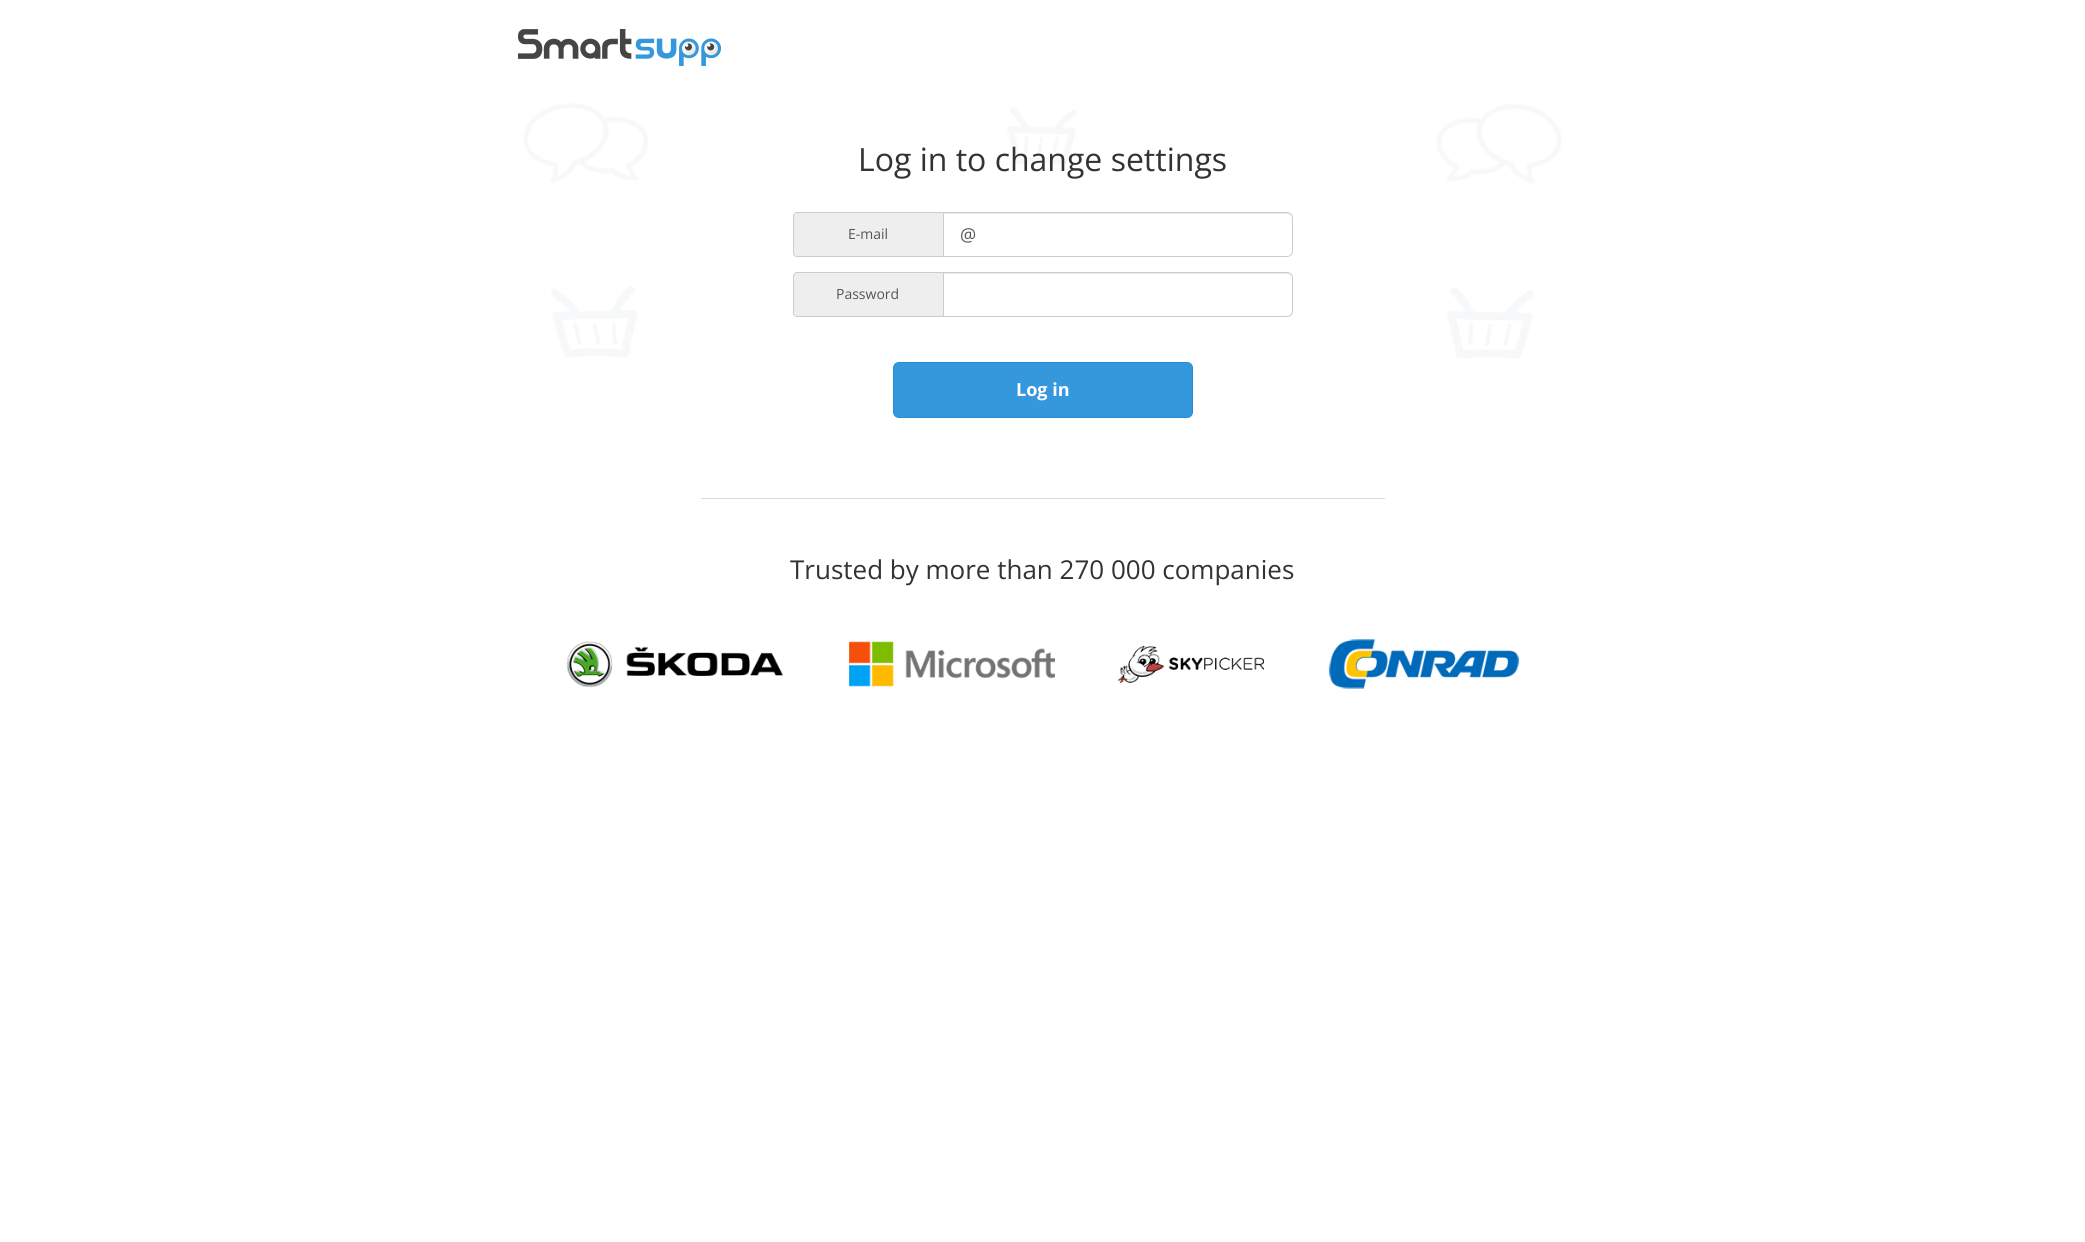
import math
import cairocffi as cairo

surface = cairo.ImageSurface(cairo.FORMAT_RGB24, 2085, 1242)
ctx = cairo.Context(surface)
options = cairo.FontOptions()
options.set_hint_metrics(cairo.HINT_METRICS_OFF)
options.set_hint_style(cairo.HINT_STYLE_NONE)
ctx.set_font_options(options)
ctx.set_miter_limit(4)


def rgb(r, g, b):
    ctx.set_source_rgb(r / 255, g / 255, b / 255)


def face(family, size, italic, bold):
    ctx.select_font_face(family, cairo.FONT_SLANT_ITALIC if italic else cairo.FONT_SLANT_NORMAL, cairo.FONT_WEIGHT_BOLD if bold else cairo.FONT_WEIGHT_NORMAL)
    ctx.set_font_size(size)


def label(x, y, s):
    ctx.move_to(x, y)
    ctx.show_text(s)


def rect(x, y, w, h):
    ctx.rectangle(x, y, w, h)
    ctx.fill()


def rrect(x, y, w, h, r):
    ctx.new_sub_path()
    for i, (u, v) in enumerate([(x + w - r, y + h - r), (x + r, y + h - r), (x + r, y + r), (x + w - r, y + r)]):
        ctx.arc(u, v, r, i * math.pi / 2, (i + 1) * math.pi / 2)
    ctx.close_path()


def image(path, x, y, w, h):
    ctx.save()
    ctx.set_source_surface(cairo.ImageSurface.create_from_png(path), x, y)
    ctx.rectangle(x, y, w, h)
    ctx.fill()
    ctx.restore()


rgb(255, 255, 255)
ctx.paint()
image('image0.png', 518, 29, 203, 37)
image('image1.png', 523, 103, 1039, 256)
face('Open Sans', 32, 0, 0)
rgb(51, 51, 51)
label(858, 171, 'Log in to change settings')
rgb(238, 238, 238)
ctx.new_path()
ctx.move_to(797, 212)
ctx.line_to(943, 212)
ctx.line_to(943, 257)
ctx.line_to(797, 257)
ctx.curve_to(795, 257, 793, 255, 793, 253)
ctx.line_to(793, 216)
ctx.curve_to(793, 214, 795, 212, 797, 212)
ctx.close_path()
ctx.fill()
rgb(204, 204, 204)
ctx.set_fill_rule(cairo.FILL_RULE_EVEN_ODD)
ctx.new_path()
ctx.move_to(797, 212)
ctx.line_to(943, 212)
ctx.line_to(943, 257)
ctx.line_to(797, 257)
ctx.curve_to(795, 257, 793, 255, 793, 253)
ctx.line_to(793, 216)
ctx.curve_to(793, 214, 795, 212, 797, 212)
ctx.close_path()
ctx.move_to(797, 213)
ctx.line_to(943, 213)
ctx.line_to(943, 256)
ctx.line_to(797, 256)
ctx.curve_to(795, 256, 794, 255, 794, 253)
ctx.line_to(794, 216)
ctx.curve_to(794, 214, 795, 213, 797, 213)
ctx.close_path()
ctx.fill()
face('Open Sans', 14, 0, 0)
rgb(85, 85, 85)
label(848, 239, 'E-mail')
rgb(236, 236, 236)
ctx.set_fill_rule(cairo.FILL_RULE_WINDING)
ctx.new_path()
ctx.move_to(944, 214)
ctx.line_to(1287, 214)
ctx.curve_to(1290, 214, 1292, 216, 1292, 219)
ctx.line_to(1292, 218)
ctx.curve_to(1292, 215, 1290, 213, 1287, 213)
ctx.line_to(944, 213)
ctx.close_path()
ctx.fill()
ctx.new_path()
ctx.move_to(943.5, 212.5)
ctx.line_to(1287, 212.5)
ctx.curve_to(1290, 212.5, 1292.5, 215, 1292.5, 218)
ctx.line_to(1292.5, 251)
ctx.curve_to(1292.5, 254, 1290, 256.5, 1287, 256.5)
ctx.line_to(943.5, 256.5)
ctx.close_path()
rgb(204, 204, 204)
ctx.set_line_width(1)
ctx.stroke()
face('Open Sans', 18, 0, 0)
rgb(85, 85, 85)
label(960, 241, '@')
rgb(238, 238, 238)
ctx.new_path()
ctx.move_to(797, 272)
ctx.line_to(943, 272)
ctx.line_to(943, 317)
ctx.line_to(797, 317)
ctx.curve_to(795, 317, 793, 315, 793, 313)
ctx.line_to(793, 276)
ctx.curve_to(793, 274, 795, 272, 797, 272)
ctx.close_path()
ctx.fill()
rgb(204, 204, 204)
ctx.set_fill_rule(cairo.FILL_RULE_EVEN_ODD)
ctx.new_path()
ctx.move_to(797, 272)
ctx.line_to(943, 272)
ctx.line_to(943, 317)
ctx.line_to(797, 317)
ctx.curve_to(795, 317, 793, 315, 793, 313)
ctx.line_to(793, 276)
ctx.curve_to(793, 274, 795, 272, 797, 272)
ctx.close_path()
ctx.move_to(797, 273)
ctx.line_to(943, 273)
ctx.line_to(943, 316)
ctx.line_to(797, 316)
ctx.curve_to(795, 316, 794, 315, 794, 313)
ctx.line_to(794, 276)
ctx.curve_to(794, 274, 795, 273, 797, 273)
ctx.close_path()
ctx.fill()
face('Open Sans', 14, 0, 0)
rgb(85, 85, 85)
label(836, 299, 'Password')
rgb(236, 236, 236)
ctx.set_fill_rule(cairo.FILL_RULE_WINDING)
ctx.new_path()
ctx.move_to(944, 274)
ctx.line_to(1287, 274)
ctx.curve_to(1290, 274, 1292, 276, 1292, 279)
ctx.line_to(1292, 278)
ctx.curve_to(1292, 275, 1290, 273, 1287, 273)
ctx.line_to(944, 273)
ctx.close_path()
ctx.fill()
ctx.new_path()
ctx.move_to(943.5, 272.5)
ctx.line_to(1287, 272.5)
ctx.curve_to(1290, 272.5, 1292.5, 275, 1292.5, 278)
ctx.line_to(1292.5, 311)
ctx.curve_to(1292.5, 314, 1290, 316.5, 1287, 316.5)
ctx.line_to(943.5, 316.5)
ctx.close_path()
rgb(204, 204, 204)
ctx.stroke()
rgb(53, 152, 220)
rrect(893.5, 362.5, 299, 55, 5.5)
ctx.fill_preserve()
rgb(37, 140, 211)
ctx.stroke()
face('Open Sans', 18, 0, 1)
rgb(255, 255, 255)
label(1016, 396, 'Log in')
rgb(219, 219, 219)
rect(701, 498, 684, 1)
face('Open Sans', 26, 0, 0)
rgb(51, 51, 51)
label(790, 579, 'Trusted by more than 270 000 companies')
image('image2.png', 566, 641, 217, 47)
image('image3.png', 849, 641, 206, 46)
image('image4.png', 1118, 646, 146, 37)
image('image5.png', 1328, 639, 192, 50)
surface.write_to_png('render.png')
